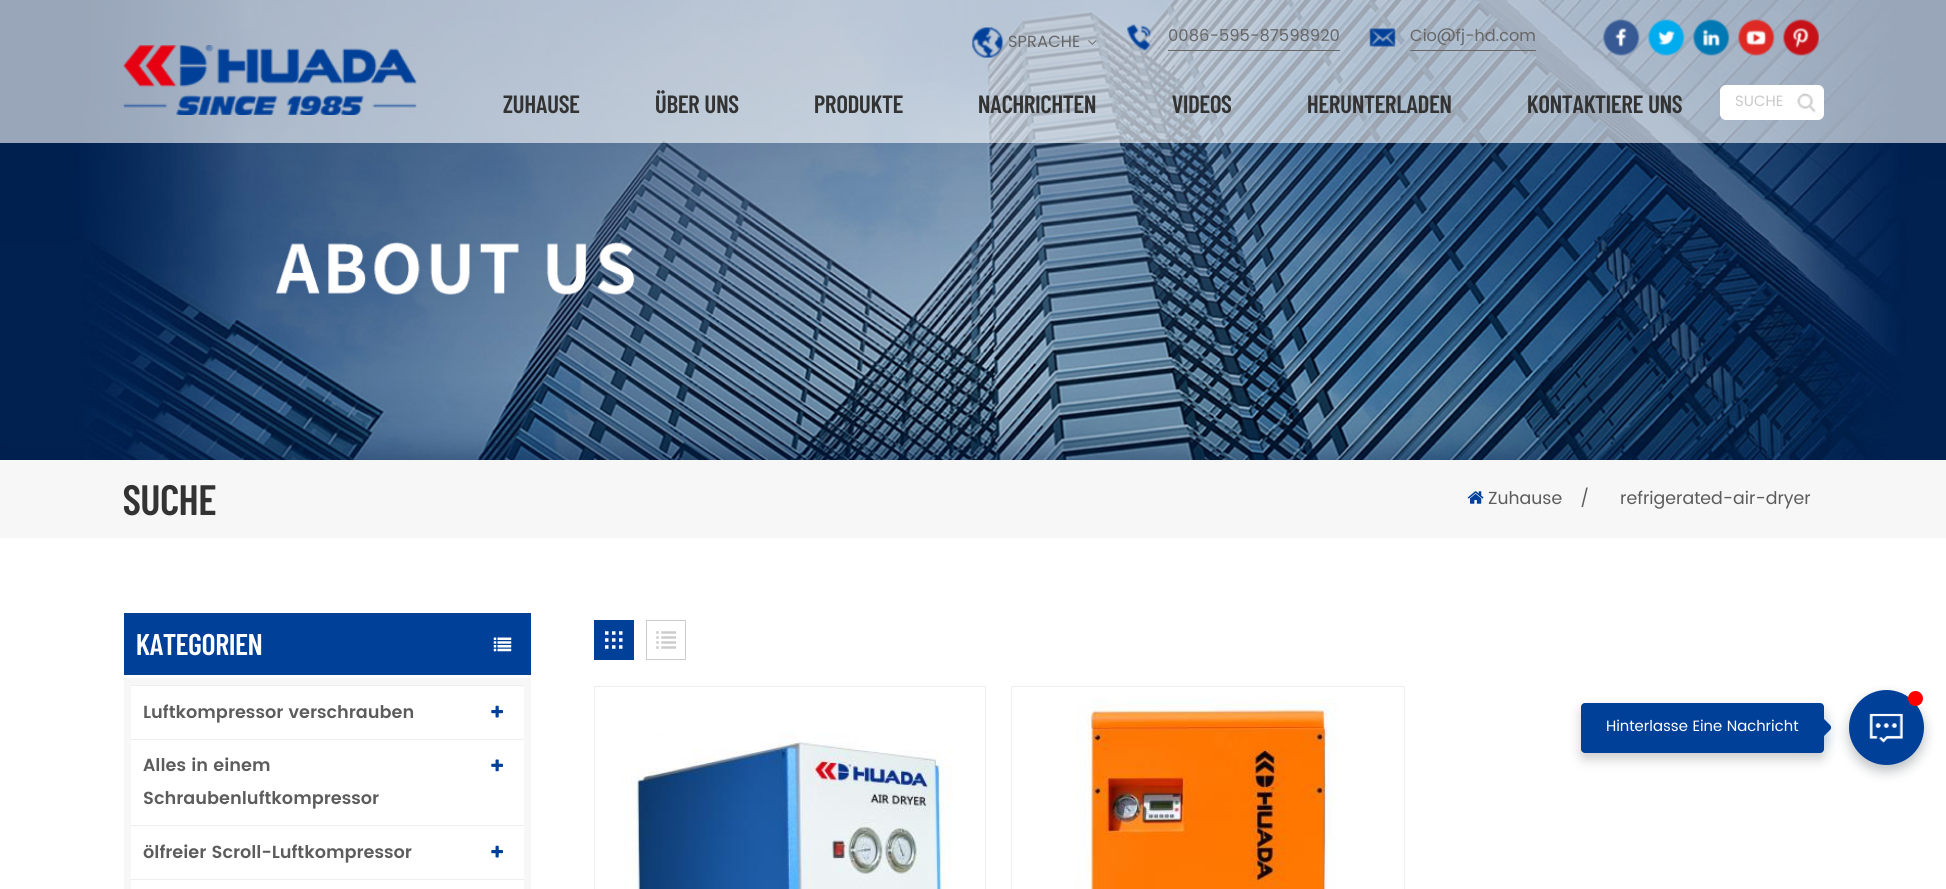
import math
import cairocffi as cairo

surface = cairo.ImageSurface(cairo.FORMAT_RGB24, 1946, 889)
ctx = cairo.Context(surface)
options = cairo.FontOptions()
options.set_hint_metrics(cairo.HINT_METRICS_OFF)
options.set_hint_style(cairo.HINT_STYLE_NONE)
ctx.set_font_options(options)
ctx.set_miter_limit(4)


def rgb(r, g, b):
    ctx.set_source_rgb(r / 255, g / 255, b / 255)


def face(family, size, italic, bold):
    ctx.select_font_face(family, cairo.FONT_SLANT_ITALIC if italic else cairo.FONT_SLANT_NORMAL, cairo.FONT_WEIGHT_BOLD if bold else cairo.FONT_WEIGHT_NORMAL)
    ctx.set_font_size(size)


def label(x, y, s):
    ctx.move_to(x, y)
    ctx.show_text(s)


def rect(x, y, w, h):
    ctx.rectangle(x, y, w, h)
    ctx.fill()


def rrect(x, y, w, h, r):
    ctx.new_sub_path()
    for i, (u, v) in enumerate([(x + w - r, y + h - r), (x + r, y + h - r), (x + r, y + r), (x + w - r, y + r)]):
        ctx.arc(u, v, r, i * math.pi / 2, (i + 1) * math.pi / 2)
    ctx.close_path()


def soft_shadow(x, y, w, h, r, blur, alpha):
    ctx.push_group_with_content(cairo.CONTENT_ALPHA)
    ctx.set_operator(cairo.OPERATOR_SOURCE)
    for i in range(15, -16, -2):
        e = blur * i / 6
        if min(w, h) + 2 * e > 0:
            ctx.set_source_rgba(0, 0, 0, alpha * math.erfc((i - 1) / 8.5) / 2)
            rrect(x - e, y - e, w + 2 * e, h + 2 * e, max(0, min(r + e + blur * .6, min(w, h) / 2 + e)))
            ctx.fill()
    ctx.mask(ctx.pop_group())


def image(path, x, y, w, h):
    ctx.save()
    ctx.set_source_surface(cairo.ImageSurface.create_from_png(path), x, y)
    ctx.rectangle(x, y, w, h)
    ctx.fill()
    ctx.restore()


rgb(255, 255, 255)
ctx.paint()
image('image0.png', 0, 0, 1946, 460)
ctx.set_source_rgba(1, 1, 1, 0.6)
rect(0, 0, 1946, 143)
image('image1.png', 123, 45, 294, 70)
image('image2.png', 972, 27, 32, 31)
face('Poppins', 16.25, 0, 0)
rgb(102, 102, 102)
label(1008, 47, 'SPRACHE')
image('image3.png', 1088, 40, 9, 5)
image('image4.png', 1127, 24, 24, 27)
label(1168, 41, '0086-595-87598920')
rgb(103, 103, 103)
rect(1168, 50, 172, 1)
image('image5.png', 1369, 28, 27, 19)
rgb(102, 102, 102)
label(1410, 41, 'Cio@fj-hd.com')
rgb(103, 103, 103)
rect(1410, 50, 126, 1)
image('image6.png', 1603, 19, 37, 37)
image('image7.png', 1648, 19, 37, 37)
image('image8.png', 1693, 19, 37, 37)
image('image9.png', 1738, 19, 37, 37)
image('image10.png', 1783, 19, 36, 37)
face('Barlow Condensed SemiBold', 25, 0, 0)
rgb(51, 51, 51)
label(503, 113, 'ZUHAUSE')
label(655, 113, 'ÜBER UNS')
label(814, 113, 'PRODUKTE')
label(978, 113, 'NACHRICHTEN')
label(1172, 113, 'VIDEOS')
label(1307, 113, 'HERUNTERLADEN')
label(1527, 113, 'KONTAKTIERE UNS')
rgb(255, 255, 255)
rrect(1720, 85, 104, 35, 6)
ctx.fill()
image('image11.png', 1797, 93, 19, 20)
face('Poppins', 15, 0, 0)
rgb(200, 200, 200)
label(1735, 106, 'SUCHE')
rgb(247, 247, 247)
rect(0, 460, 1946, 78)
face('Barlow Condensed SemiBold', 42.5, 0, 0)
rgb(51, 51, 51)
label(123, 515, 'SUCHE')
image('image12.png', 1467, 491, 17, 13)
face('Poppins', 17.5, 0, 0)
rgb(92, 92, 92)
label(1488, 504, 'Zuhause')
label(1580, 504, '/')
label(1620, 504, 'refrigerated-air-dryer')
rgb(247, 247, 247)
rect(124, 678, 407, 211)
rgb(1, 64, 153)
rect(124, 613, 407, 62)
face('Barlow Condensed SemiBold', 30, 0, 0)
rgb(255, 255, 255)
label(136, 655, 'KATEGORIEN')
image('image13.png', 493, 637, 19, 15)
rect(131, 686, 393, 53)
rgb(238, 238, 238)
rect(131, 685, 393, 1)
face('Poppins SemiBold', 17.5, 0, 0)
rgb(92, 92, 92)
label(143, 718, 'Luftkompressor verschrauben')
image('image14.png', 491, 705, 13, 13)
rgb(255, 255, 255)
rect(131, 740, 393, 85)
rgb(238, 238, 238)
rect(131, 739, 393, 1)
rgb(92, 92, 92)
label(143, 771, 'Alles in einem')
label(143, 804, 'Schraubenluftkompressor')
image('image15.png', 491, 759, 13, 13)
rgb(255, 255, 255)
rect(131, 826, 393, 53)
rgb(238, 238, 238)
rect(131, 825, 393, 1)
rgb(92, 92, 92)
label(143, 858, 'ölfreier Scroll-Luftkompressor')
image('image14.png', 491, 845, 13, 13)
rgb(255, 255, 255)
rect(131, 880, 393, 9)
rgb(238, 238, 238)
rect(131, 879, 393, 1)
rgb(1, 64, 153)
rect(594, 620, 40, 40)
image('image16.png', 605, 631, 18, 18)
ctx.rectangle(646.5, 620.5, 39, 39)
rgb(204, 204, 204)
ctx.set_line_width(1)
ctx.stroke()
image('image17.png', 656, 631, 20, 18)
ctx.rectangle(594.5, 686.5, 391, 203)
rgb(238, 238, 238)
ctx.stroke()
image('image18.png', 623, 732, 330, 157)
ctx.rectangle(1011.5, 686.5, 393, 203)
ctx.stroke()
image('image19.png', 1076, 698, 261, 191)
rgb(35, 50, 56)
soft_shadow(1849, 696, 75, 75, 37.5, 6, 0.3)
rgb(1, 64, 153)
ctx.arc(1886.5, 727.5, 37.5, 0, 2 * math.pi)
ctx.fill()
image('image20.png', 1869, 713, 34, 30)
rgb(255, 0, 0)
ctx.arc(1915.5, 698.5, 7.5, 0, 2 * math.pi)
ctx.fill()
rgb(0, 0, 0)
soft_shadow(1581, 709, 243, 50, 4, 6, 0.2)
rgb(0, 113, 181)
soft_shadow(1803, 721, 25, 25, 4, 6.5, 0.2)
rgb(1, 64, 153)
ctx.new_path()
ctx.move_to(1800, 725)
ctx.line_to(1812.5, 712.5)
ctx.curve_to(1814, 711, 1816, 711, 1817.5, 712.5)
ctx.line_to(1830, 725)
ctx.curve_to(1831.5, 726.5, 1831.5, 728.5, 1830, 730)
ctx.line_to(1817.5, 742.5)
ctx.curve_to(1816, 744, 1814, 744, 1812.5, 742.5)
ctx.line_to(1800, 730)
ctx.curve_to(1798.5, 728.5, 1798.5, 726.5, 1800, 725)
ctx.close_path()
ctx.fill()
rrect(1581, 703, 243, 50, 4)
ctx.fill()
face('Poppins', 15, 0, 0)
rgb(255, 255, 255)
label(1606, 731, 'Hinterlasse Eine Nachricht')
surface.write_to_png('render.png')
